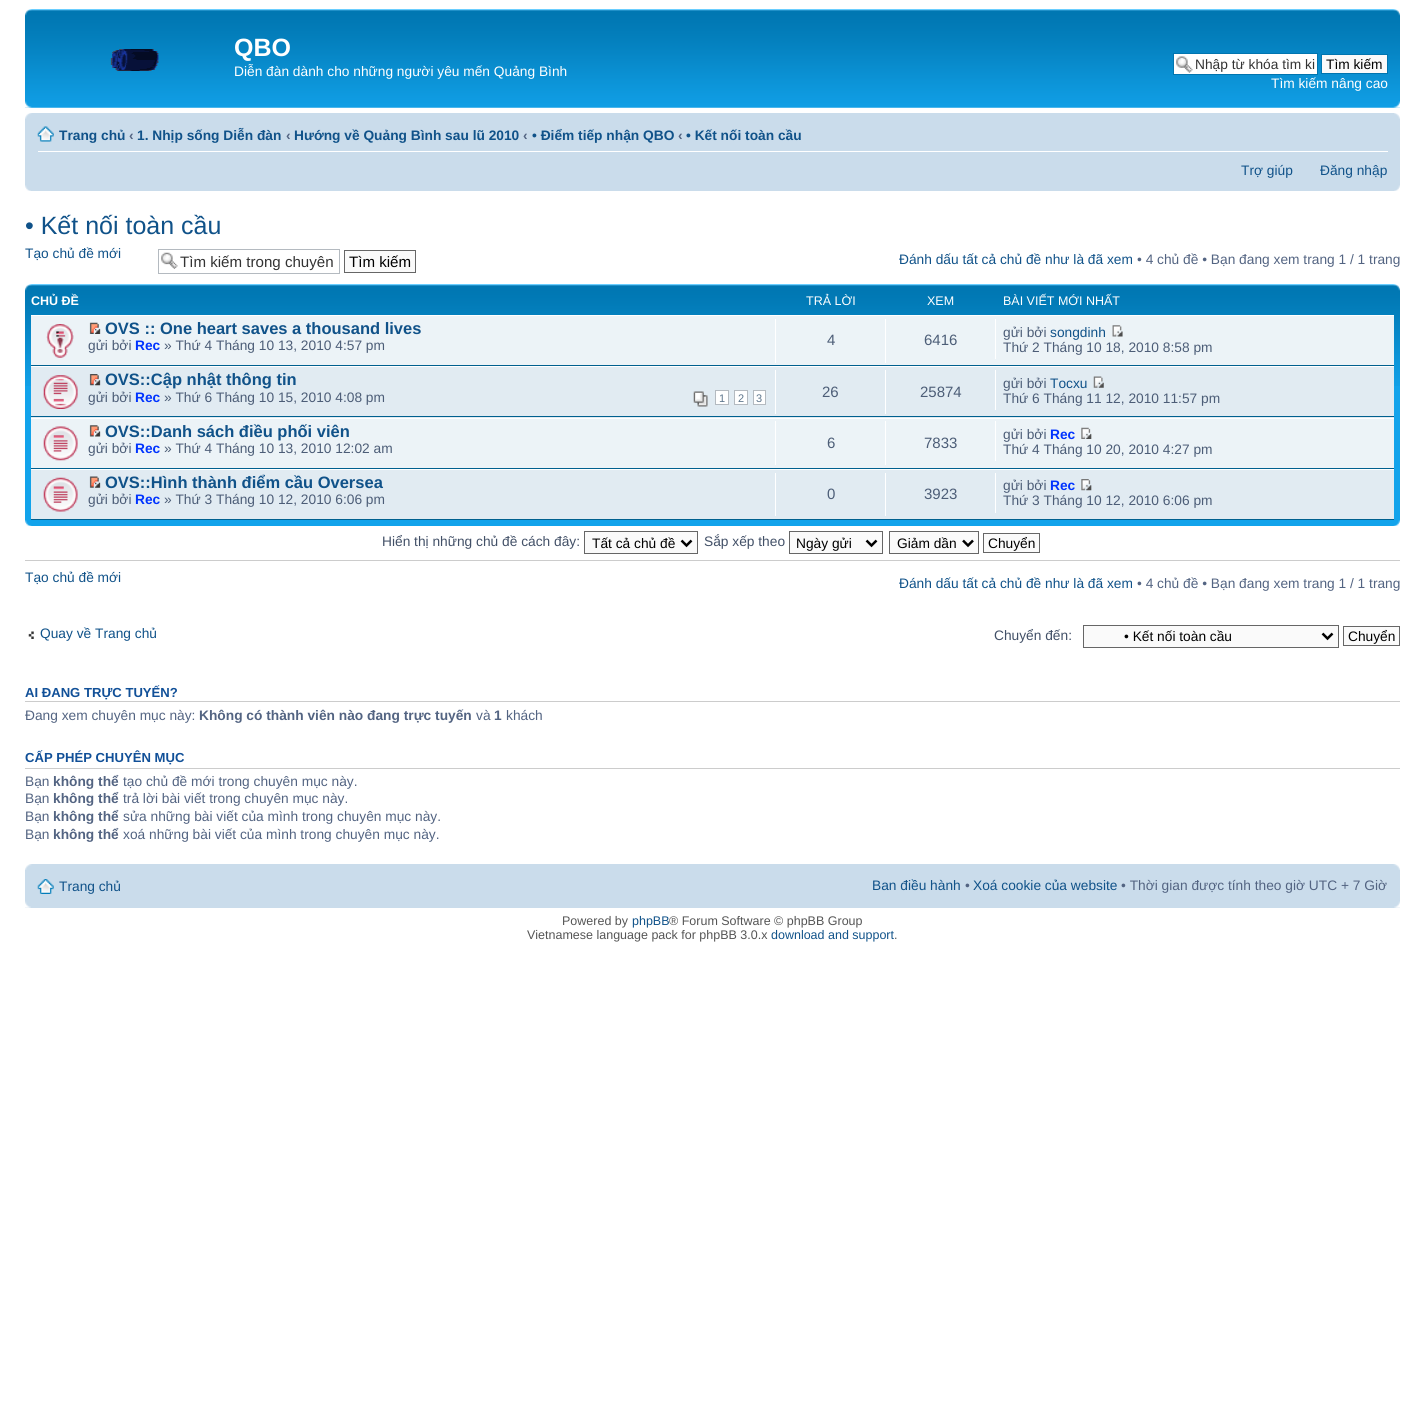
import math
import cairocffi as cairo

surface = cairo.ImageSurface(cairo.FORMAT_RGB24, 1424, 1404)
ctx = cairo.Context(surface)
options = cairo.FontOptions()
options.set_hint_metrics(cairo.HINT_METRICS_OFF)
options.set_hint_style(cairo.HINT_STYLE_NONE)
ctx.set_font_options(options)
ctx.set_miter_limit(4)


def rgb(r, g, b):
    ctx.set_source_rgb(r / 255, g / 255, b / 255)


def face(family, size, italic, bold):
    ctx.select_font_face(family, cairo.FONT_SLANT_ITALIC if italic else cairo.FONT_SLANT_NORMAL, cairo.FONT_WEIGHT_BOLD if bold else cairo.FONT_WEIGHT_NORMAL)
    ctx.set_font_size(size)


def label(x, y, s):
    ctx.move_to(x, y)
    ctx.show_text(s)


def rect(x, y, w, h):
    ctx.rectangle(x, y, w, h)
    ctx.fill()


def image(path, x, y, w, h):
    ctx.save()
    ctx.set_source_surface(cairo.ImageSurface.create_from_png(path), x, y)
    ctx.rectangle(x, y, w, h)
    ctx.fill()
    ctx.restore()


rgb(255, 255, 255)
ctx.paint()
image('image0.png', 25, 9, 1375, 99)
image('image1.png', 25, 9, 7, 7)
image('image2.png', 1393, 9, 7, 7)
image('image3.png', 110, 49, 49, 22)
face('Liberation Sans', 25, 0, 1)
rgb(255, 255, 255)
label(234, 56, 'QBO')
face('Liberation Sans', 13.75, 0, 0)
label(234, 76, 'Diễn đàn dành cho những người yêu mến Quảng Bình')
rect(1174, 54, 143, 20)
image('image4.png', 1176, 56, 17, 17)
ctx.rectangle(1173.5, 53.5, 144, 21)
rgb(0, 117, 176)
ctx.set_line_width(1)
ctx.stroke()
rgb(51, 51, 51)
label(1195, 69, 'Nhập từ khóa tìm ki')
rgb(250, 250, 250)
ctx.rectangle(1321.5, 54.5, 66, 19)
ctx.fill_preserve()
rgb(0, 117, 176)
ctx.stroke()
rgb(0, 0, 0)
label(1326, 69, 'Tìm kiếm')
rgb(255, 255, 255)
label(1271, 88, 'Tìm kiếm nâng cao')
image('image5.png', 25, 101, 7, 7)
image('image6.png', 1393, 101, 7, 7)
rgb(202, 220, 235)
rect(25, 113, 1375, 78)
image('image7.png', 25, 113, 7, 6)
image('image8.png', 1394, 113, 6, 6)
rgb(255, 255, 255)
rect(38, 151, 1350, 1)
image('image9.png', 37, 126, 17, 16)
face('Liberation Sans', 13.75, 0, 1)
rgb(16, 82, 137)
label(59, 140, 'Trang chủ')
rgb(83, 100, 130)
label(129, 140, '‹')
rgb(16, 82, 137)
label(137, 140, '1. Nhịp sống Diễn đàn')
rgb(83, 100, 130)
label(286, 140, '‹')
rgb(16, 82, 137)
label(294, 140, 'Hướng về Quảng Bình sau lũ 2010')
rgb(83, 100, 130)
label(523, 140, '‹')
rgb(16, 82, 137)
label(532, 140, '• Điểm tiếp nhận QBO')
rgb(83, 100, 130)
label(678, 140, '‹')
rgb(16, 82, 137)
label(686, 140, '• Kết nối toàn cầu')
face('Liberation Sans', 13.75, 0, 0)
label(1241, 175, 'Trợ giúp')
label(1320, 175, 'Đăng nhập')
image('image10.png', 25, 185, 6, 6)
image('image11.png', 1394, 185, 6, 6)
face('Liberation Sans', 25, 0, 0)
label(25, 234, '• Kết nối toàn cầu')
face('Liberation Sans', 13.75, 0, 0)
label(25, 258, 'Tạo chủ đề mới')
image('image12.png', 161, 252, 17, 17)
ctx.rectangle(158.5, 249.5, 181, 24)
rgb(180, 186, 192)
ctx.stroke()
face('Liberation Sans', 15.1, 0, 0)
rgb(51, 51, 51)
label(180, 267, 'Tìm kiếm trong chuyên')
rgb(250, 250, 250)
ctx.rectangle(344.5, 250.5, 71, 22)
ctx.fill_preserve()
rgb(102, 102, 102)
ctx.stroke()
rgb(0, 0, 0)
label(349, 267, 'Tìm kiếm')
face('Liberation Sans', 13.75, 0, 0)
rgb(16, 82, 137)
label(899, 264, 'Đánh dấu tất cả chủ đề như là đã xem')
rgb(83, 100, 130)
label(1137, 264, '• 4 chủ đề • Bạn đang xem trang 1 / 1 trang')
rgb(18, 163, 235)
rect(25, 386, 1375, 140)
image('image13.png', 25, 284, 1375, 102)
image('image14.png', 25, 284, 7, 7)
image('image15.png', 1393, 284, 7, 7)
face('Liberation Sans', 12.5, 0, 1)
rgb(255, 255, 255)
label(31, 305, 'CHỦ ĐỀ')
face('Liberation Sans', 12.5, 0, 0)
label(806, 305, 'TRẢ LỜI')
label(927, 305, 'XEM')
label(1003, 305, 'BÀI VIẾT MỚI NHẤT')
rgb(236, 243, 247)
rect(31, 316, 1363, 49)
rgb(255, 255, 255)
rect(31, 315, 1363, 1)
rgb(0, 96, 143)
rect(31, 365, 1363, 1)
image('image16.png', 46, 324, 28, 34)
image('image17.png', 89, 322, 12, 12)
face('Liberation Sans', 16.5, 0, 1)
rgb(16, 82, 137)
label(105, 334, 'OVS :: One heart saves a thousand lives')
face('Liberation Sans', 13.75, 0, 0)
rgb(76, 93, 119)
label(88, 350, 'gửi bởi')
face('Liberation Sans', 13.75, 0, 1)
rgb(0, 51, 255)
label(135, 350, 'Rec')
face('Liberation Sans', 13.75, 0, 0)
rgb(76, 93, 119)
label(164, 350, '» Thứ 4 Tháng 10 13, 2010 4:57 pm')
rgb(255, 255, 255)
rect(775, 319, 1, 44)
face('Liberation Sans', 15, 0, 0)
rgb(76, 93, 119)
label(827, 345, '4')
rgb(255, 255, 255)
rect(885, 319, 1, 44)
rgb(76, 93, 119)
label(924, 345, '6416')
rgb(255, 255, 255)
rect(995, 319, 1, 40)
face('Liberation Sans', 13.75, 0, 0)
rgb(76, 93, 119)
label(1003, 337, 'gửi bởi')
rgb(16, 82, 137)
label(1050, 337, 'songdinh')
image('image18.png', 1112, 325, 11, 12)
rgb(76, 93, 119)
label(1003, 352, 'Thứ 2 Tháng 10 18, 2010 8:58 pm')
rgb(225, 235, 242)
rect(31, 367, 1363, 51)
rgb(255, 255, 255)
rect(31, 366, 1363, 1)
rgb(0, 96, 143)
rect(31, 416, 1363, 1)
image('image19.png', 43, 375, 35, 34)
image('image20.png', 89, 374, 12, 12)
face('Liberation Sans', 16.5, 0, 1)
rgb(16, 82, 137)
label(105, 385, 'OVS::Cập nhật thông tin')
face('Liberation Sans', 13.75, 0, 0)
rgb(76, 93, 119)
label(88, 402, 'gửi bởi')
face('Liberation Sans', 13.75, 0, 1)
rgb(0, 51, 255)
label(135, 402, 'Rec')
face('Liberation Sans', 13.75, 0, 0)
rgb(76, 93, 119)
label(164, 402, '» Thứ 6 Tháng 10 15, 2010 4:08 pm')
image('image21.png', 693, 391, 15, 16)
rgb(255, 255, 255)
ctx.rectangle(715.5, 390.5, 13, 14)
ctx.fill_preserve()
rgb(180, 186, 192)
ctx.stroke()
face('Liberation Sans', 11, 0, 0)
rgb(92, 117, 140)
label(719, 402, '1')
rgb(255, 255, 255)
ctx.rectangle(734.5, 390.5, 13, 14)
ctx.fill_preserve()
rgb(180, 186, 192)
ctx.stroke()
rgb(92, 117, 140)
label(738, 402, '2')
rgb(255, 255, 255)
ctx.rectangle(753.5, 390.5, 12, 14)
ctx.fill_preserve()
rgb(180, 186, 192)
ctx.stroke()
rgb(92, 117, 140)
label(756, 402, '3')
rgb(255, 255, 255)
rect(775, 370, 1, 44)
face('Liberation Sans', 15, 0, 0)
rgb(76, 93, 119)
label(822, 397, '26')
rgb(255, 255, 255)
rect(885, 370, 1, 44)
rgb(76, 93, 119)
label(920, 397, '25874')
rgb(255, 255, 255)
rect(995, 370, 1, 40)
face('Liberation Sans', 13.75, 0, 0)
rgb(76, 93, 119)
label(1003, 388, 'gửi bởi')
rgb(16, 82, 137)
label(1050, 388, 'Tocxu')
image('image22.png', 1093, 376, 11, 12)
rgb(76, 93, 119)
label(1003, 403, 'Thứ 6 Tháng 11 12, 2010 11:57 pm')
rgb(236, 243, 247)
rect(31, 419, 1363, 49)
rgb(255, 255, 255)
rect(31, 418, 1363, 1)
rgb(0, 96, 143)
rect(31, 468, 1363, 1)
image('image23.png', 43, 426, 35, 35)
image('image24.png', 89, 425, 12, 12)
face('Liberation Sans', 16.5, 0, 1)
rgb(16, 82, 137)
label(105, 437, 'OVS::Danh sách điều phối viên')
face('Liberation Sans', 13.75, 0, 0)
rgb(76, 93, 119)
label(88, 453, 'gửi bởi')
face('Liberation Sans', 13.75, 0, 1)
rgb(0, 51, 255)
label(135, 453, 'Rec')
face('Liberation Sans', 13.75, 0, 0)
rgb(76, 93, 119)
label(164, 453, '» Thứ 4 Tháng 10 13, 2010 12:02 am')
rgb(255, 255, 255)
rect(775, 421, 1, 44)
face('Liberation Sans', 15, 0, 0)
rgb(76, 93, 119)
label(827, 448, '6')
rgb(255, 255, 255)
rect(885, 421, 1, 44)
rgb(76, 93, 119)
label(924, 448, '7833')
rgb(255, 255, 255)
rect(995, 421, 1, 40)
face('Liberation Sans', 13.75, 0, 0)
rgb(76, 93, 119)
label(1003, 439, 'gửi bởi')
face('Liberation Sans', 13.75, 0, 1)
rgb(0, 51, 255)
label(1050, 439, 'Rec')
image('image25.png', 1081, 427, 11, 12)
face('Liberation Sans', 13.75, 0, 0)
rgb(76, 93, 119)
label(1003, 454, 'Thứ 4 Tháng 10 20, 2010 4:27 pm')
rgb(225, 235, 242)
rect(31, 470, 1363, 49)
rgb(255, 255, 255)
rect(31, 469, 1363, 1)
rgb(0, 96, 143)
rect(31, 519, 1363, 1)
image('image26.png', 43, 477, 35, 35)
image('image27.png', 89, 476, 12, 12)
face('Liberation Sans', 16.5, 0, 1)
rgb(16, 82, 137)
label(105, 488, 'OVS::Hình thành điểm cầu Oversea')
face('Liberation Sans', 13.75, 0, 0)
rgb(76, 93, 119)
label(88, 504, 'gửi bởi')
face('Liberation Sans', 13.75, 0, 1)
rgb(0, 51, 255)
label(135, 504, 'Rec')
face('Liberation Sans', 13.75, 0, 0)
rgb(76, 93, 119)
label(164, 504, '» Thứ 3 Tháng 10 12, 2010 6:06 pm')
rgb(255, 255, 255)
rect(775, 473, 1, 43)
face('Liberation Sans', 15, 0, 0)
rgb(76, 93, 119)
label(827, 499, '0')
rgb(255, 255, 255)
rect(885, 473, 1, 43)
rgb(76, 93, 119)
label(924, 499, '3923')
rgb(255, 255, 255)
rect(995, 473, 1, 40)
face('Liberation Sans', 13.75, 0, 0)
rgb(76, 93, 119)
label(1003, 490, 'gửi bởi')
face('Liberation Sans', 13.75, 0, 1)
rgb(0, 51, 255)
label(1050, 490, 'Rec')
image('image28.png', 1081, 479, 11, 12)
face('Liberation Sans', 13.75, 0, 0)
rgb(76, 93, 119)
label(1003, 505, 'Thứ 3 Tháng 10 12, 2010 6:06 pm')
image('image29.png', 25, 520, 7, 6)
image('image30.png', 1393, 520, 7, 6)
rgb(66, 80, 103)
label(382, 546, 'Hiển thị những chủ đề cách đây:')
rgb(250, 250, 250)
ctx.rectangle(584.5, 531.5, 113, 22)
ctx.fill_preserve()
rgb(102, 102, 102)
ctx.stroke()
ctx.new_path()
ctx.move_to(681.5, 540.5)
ctx.line_to(686.5, 545.5)
ctx.line_to(691.5, 540.5)
rgb(0, 0, 0)
ctx.set_line_width(2.5)
ctx.stroke()
label(592, 548, 'Tất cả chủ đề')
rgb(66, 80, 103)
label(704, 546, 'Sắp xếp theo')
rgb(250, 250, 250)
ctx.rectangle(789.5, 531.5, 93, 22)
ctx.fill_preserve()
rgb(102, 102, 102)
ctx.set_line_width(1)
ctx.stroke()
ctx.new_path()
ctx.move_to(866.5, 540.5)
ctx.line_to(871.5, 545.5)
ctx.line_to(876.5, 540.5)
rgb(0, 0, 0)
ctx.set_line_width(2.5)
ctx.stroke()
label(796, 548, 'Ngày gửi')
rgb(250, 250, 250)
ctx.rectangle(889.5, 531.5, 89, 22)
ctx.fill_preserve()
rgb(102, 102, 102)
ctx.set_line_width(1)
ctx.stroke()
ctx.new_path()
ctx.move_to(963, 540.5)
ctx.line_to(968, 545.5)
ctx.line_to(973, 540.5)
rgb(0, 0, 0)
ctx.set_line_width(2.5)
ctx.stroke()
label(897, 548, 'Giảm dần')
rgb(250, 250, 250)
ctx.rectangle(983.5, 533.5, 56, 19)
ctx.fill_preserve()
rgb(102, 102, 102)
ctx.set_line_width(1)
ctx.stroke()
rgb(0, 0, 0)
label(988, 548, 'Chuyển')
rgb(204, 204, 204)
rect(25, 560, 1375, 1)
rgb(16, 82, 137)
label(25, 582, 'Tạo chủ đề mới')
label(899, 588, 'Đánh dấu tất cả chủ đề như là đã xem')
rgb(83, 100, 130)
label(1137, 588, '• 4 chủ đề • Bạn đang xem trang 1 / 1 trang')
image('image31.png', 28, 631, 6, 8)
rgb(16, 82, 137)
label(40, 638, 'Quay về Trang chủ')
rgb(66, 80, 103)
label(994, 640, 'Chuyển đến:')
rgb(250, 250, 250)
ctx.rectangle(1083.5, 625.5, 255, 22)
ctx.fill_preserve()
rgb(102, 102, 102)
ctx.stroke()
ctx.new_path()
ctx.move_to(1322.5, 633.5)
ctx.line_to(1327.5, 638.5)
ctx.line_to(1332.5, 633.5)
rgb(0, 0, 0)
ctx.set_line_width(2.5)
ctx.stroke()
label(1124, 641, '• Kết nối toàn cầu')
rgb(250, 250, 250)
ctx.rectangle(1343.5, 626.5, 56, 19)
ctx.fill_preserve()
rgb(102, 102, 102)
ctx.set_line_width(1)
ctx.stroke()
rgb(0, 0, 0)
label(1348, 641, 'Chuyển')
rgb(204, 204, 204)
rect(25, 701, 1375, 1)
face('Liberation Sans', 13.1, 0, 1)
rgb(17, 80, 152)
label(25, 697, 'AI ĐANG TRỰC TUYẾN?')
face('Liberation Sans', 13.75, 0, 0)
rgb(83, 100, 130)
label(25, 720, 'Đang xem chuyên mục này:')
face('Liberation Sans', 13.75, 0, 1)
label(199, 720, 'Không có thành viên nào đang trực tuyến')
face('Liberation Sans', 13.75, 0, 0)
label(476, 720, 'và')
face('Liberation Sans', 13.75, 0, 1)
label(494, 720, '1')
face('Liberation Sans', 13.75, 0, 0)
label(506, 720, 'khách')
rgb(204, 204, 204)
rect(25, 768, 1375, 1)
face('Liberation Sans', 13.1, 0, 1)
rgb(17, 80, 152)
label(25, 762, 'CẤP PHÉP CHUYÊN MỤC')
face('Liberation Sans', 13.75, 0, 0)
rgb(83, 100, 130)
label(25, 786, 'Bạn')
face('Liberation Sans', 13.75, 0, 1)
label(53, 786, 'không thể')
face('Liberation Sans', 13.75, 0, 0)
label(123, 786, 'tạo chủ đề mới trong chuyên mục này.')
label(25, 803, 'Bạn')
face('Liberation Sans', 13.75, 0, 1)
label(53, 803, 'không thể')
face('Liberation Sans', 13.75, 0, 0)
label(123, 803, 'trả lời bài viết trong chuyên mục này.')
label(25, 821, 'Bạn')
face('Liberation Sans', 13.75, 0, 1)
label(53, 821, 'không thể')
face('Liberation Sans', 13.75, 0, 0)
label(123, 821, 'sửa những bài viết của mình trong chuyên mục này.')
label(25, 839, 'Bạn')
face('Liberation Sans', 13.75, 0, 1)
label(53, 839, 'không thể')
face('Liberation Sans', 13.75, 0, 0)
label(123, 839, 'xoá những bài viết của mình trong chuyên mục này.')
rgb(202, 220, 235)
rect(25, 864, 1375, 44)
image('image32.png', 25, 864, 7, 6)
image('image33.png', 1393, 864, 7, 6)
image('image34.png', 37, 879, 17, 15)
rgb(16, 82, 137)
label(59, 891, 'Trang chủ')
label(872, 890, 'Ban điều hành')
rgb(83, 100, 130)
label(965, 890, '•')
rgb(16, 82, 137)
label(973, 890, 'Xoá cookie của website')
rgb(83, 100, 130)
label(1121, 890, '• Thời gian được tính theo giờ UTC + 7 Giờ')
image('image35.png', 25, 901, 6, 7)
image('image36.png', 1394, 901, 6, 7)
face('Liberation Sans', 12.5, 0, 0)
rgb(85, 85, 85)
label(562, 925, 'Powered by')
rgb(16, 82, 137)
label(632, 925, 'phpBB')
rgb(85, 85, 85)
label(669, 925, '® Forum Software © phpBB Group')
label(527, 939, 'Vietnamese language pack for phpBB 3.0.x')
rgb(16, 82, 137)
label(771, 939, 'download and support')
rgb(85, 85, 85)
label(894, 939, '.')
surface.write_to_png('render.png')
